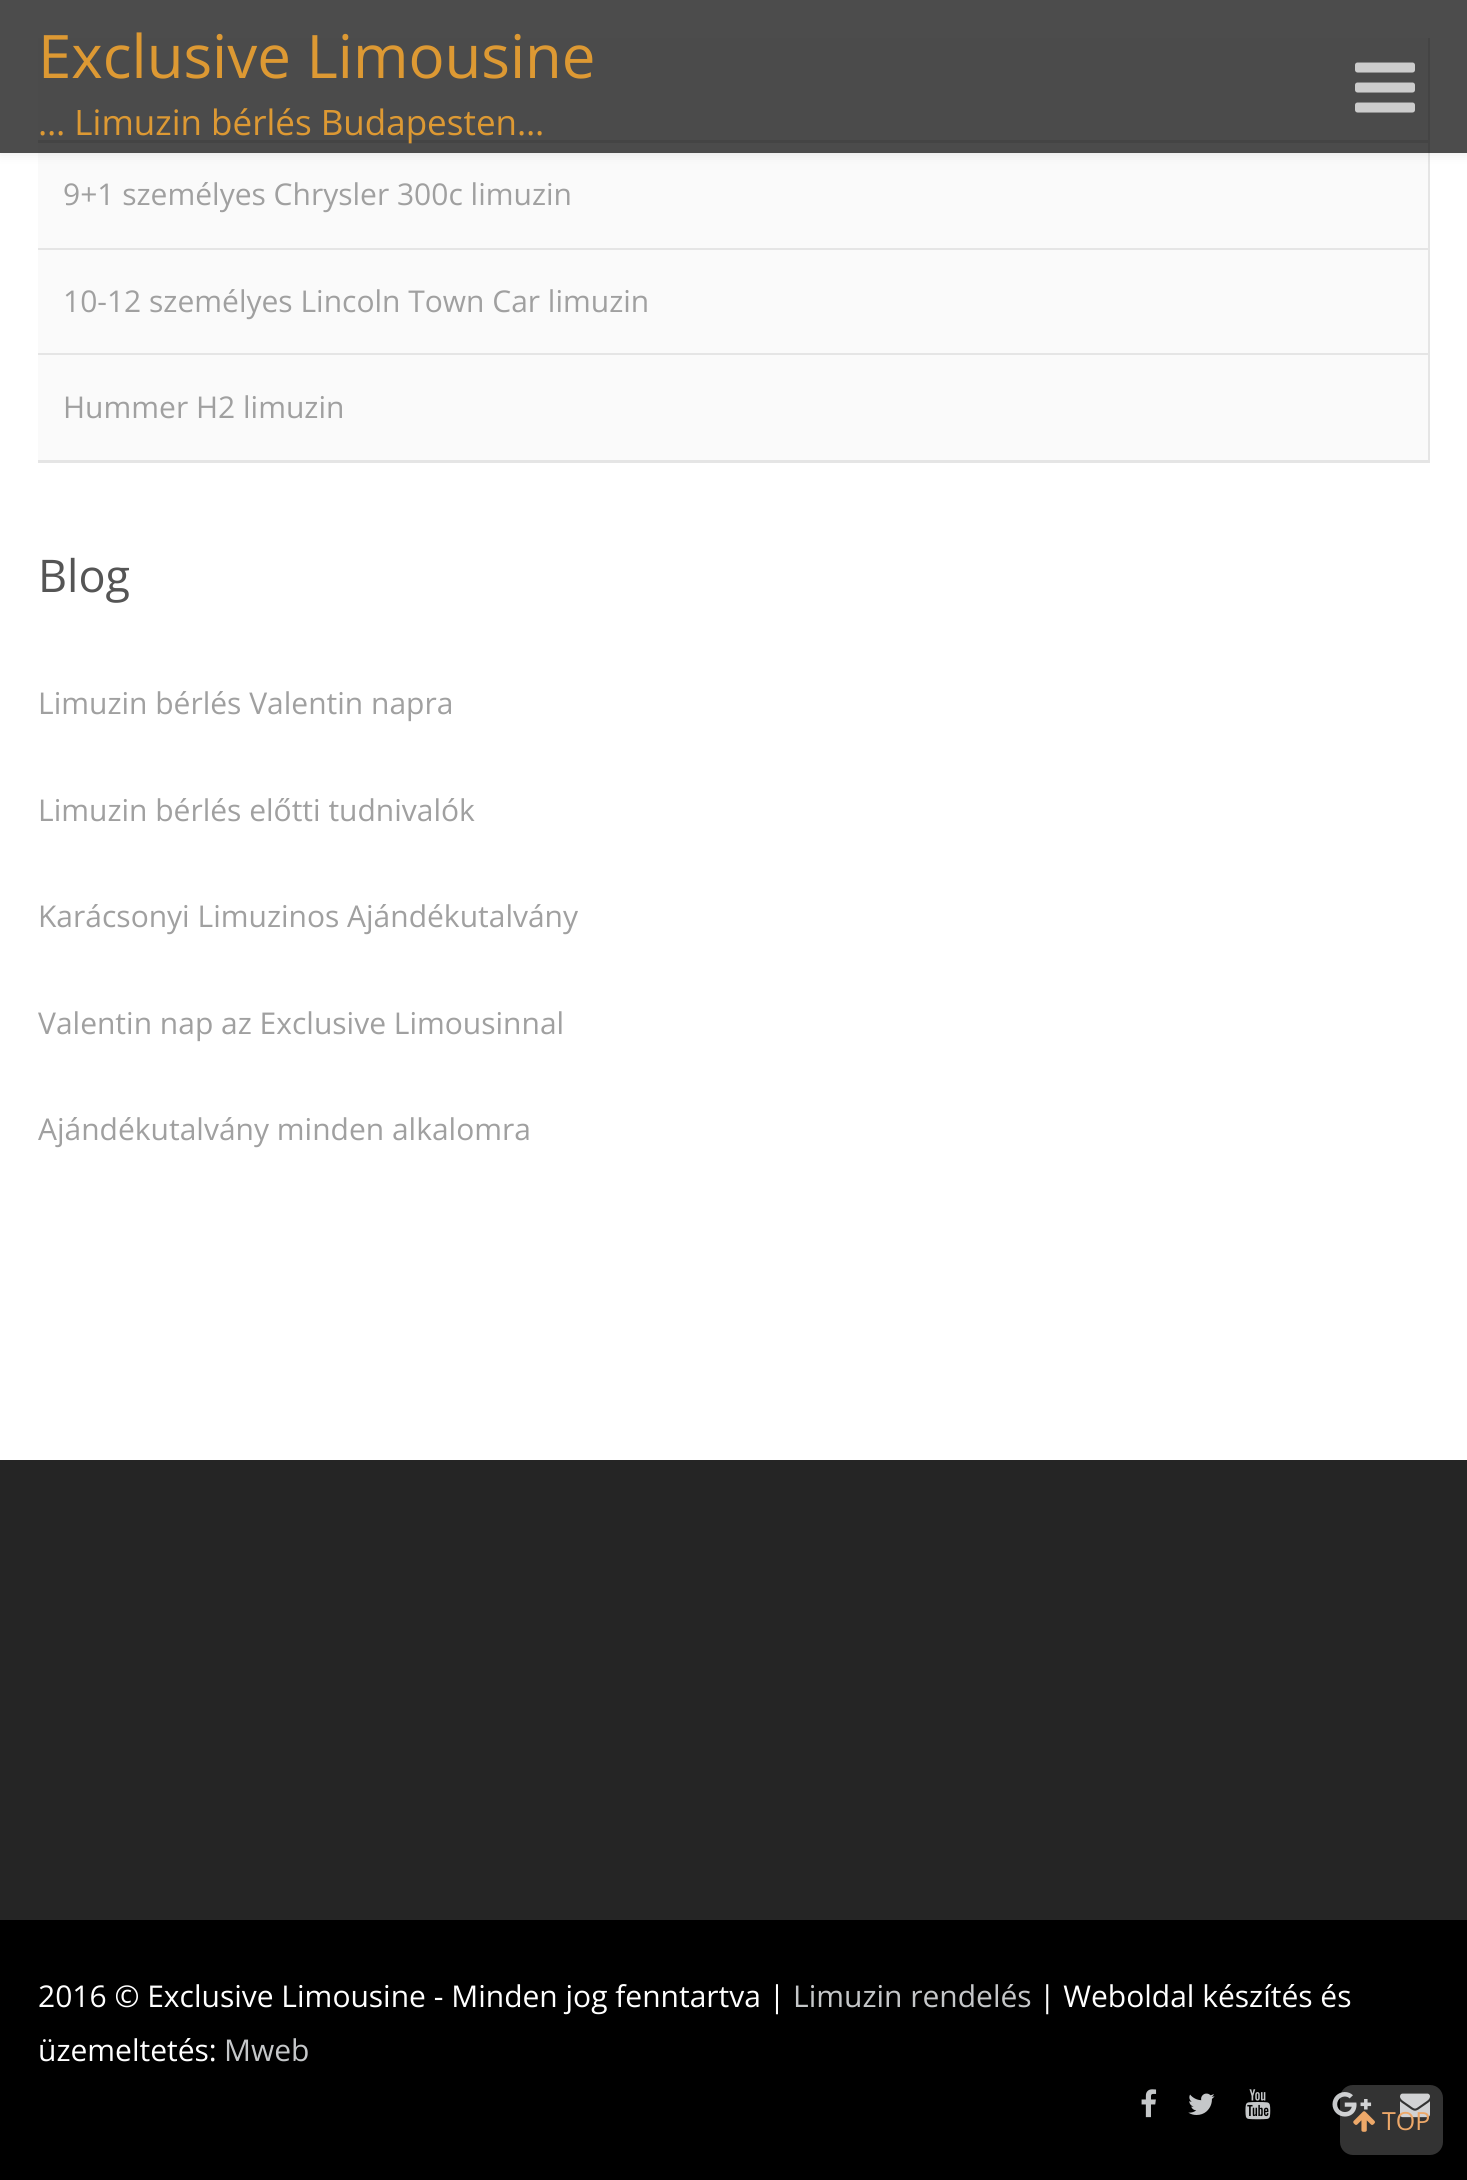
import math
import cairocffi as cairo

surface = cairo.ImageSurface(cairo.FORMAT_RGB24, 1467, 2180)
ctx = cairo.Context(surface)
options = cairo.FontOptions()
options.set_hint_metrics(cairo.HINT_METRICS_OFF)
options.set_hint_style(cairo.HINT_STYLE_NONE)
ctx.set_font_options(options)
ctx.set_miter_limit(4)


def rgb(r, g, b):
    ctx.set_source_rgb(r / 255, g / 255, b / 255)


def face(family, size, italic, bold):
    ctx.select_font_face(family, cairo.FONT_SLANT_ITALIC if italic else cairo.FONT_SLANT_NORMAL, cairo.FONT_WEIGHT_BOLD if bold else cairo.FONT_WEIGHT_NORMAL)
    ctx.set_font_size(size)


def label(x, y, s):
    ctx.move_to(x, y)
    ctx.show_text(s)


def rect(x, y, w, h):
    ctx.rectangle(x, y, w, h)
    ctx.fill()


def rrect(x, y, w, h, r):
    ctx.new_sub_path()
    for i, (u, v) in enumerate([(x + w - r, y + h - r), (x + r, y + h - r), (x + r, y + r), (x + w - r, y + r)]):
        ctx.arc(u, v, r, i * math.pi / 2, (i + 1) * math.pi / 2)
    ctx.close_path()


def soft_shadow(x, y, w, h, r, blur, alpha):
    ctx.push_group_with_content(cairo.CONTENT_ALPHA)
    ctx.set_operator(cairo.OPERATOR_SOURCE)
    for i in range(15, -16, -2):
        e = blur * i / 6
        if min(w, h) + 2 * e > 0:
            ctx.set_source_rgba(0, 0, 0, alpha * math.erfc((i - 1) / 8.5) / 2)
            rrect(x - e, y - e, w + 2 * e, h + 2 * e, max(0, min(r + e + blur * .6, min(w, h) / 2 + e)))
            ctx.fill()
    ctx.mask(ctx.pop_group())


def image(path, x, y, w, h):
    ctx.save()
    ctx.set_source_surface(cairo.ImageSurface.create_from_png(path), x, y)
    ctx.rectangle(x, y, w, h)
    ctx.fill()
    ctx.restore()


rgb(255, 255, 255)
ctx.paint()
rgb(250, 250, 250)
rect(38, 38, 1390, 102)
rgb(229, 229, 229)
rect(1428, 38, 2, 425)
rect(38, 140, 1392, 3)
rgb(250, 250, 250)
rect(38, 143, 1390, 105)
ctx.save()
ctx.set_fill_rule(cairo.FILL_RULE_EVEN_ODD)
ctx.new_path()
ctx.move_to(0, 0)
ctx.line_to(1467, 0)
ctx.line_to(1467, 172)
ctx.line_to(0, 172)
ctx.close_path()
ctx.move_to(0, 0)
ctx.line_to(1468, 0)
ctx.line_to(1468, 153)
ctx.line_to(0, 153)
ctx.close_path()
ctx.clip()
rgb(0, 0, 0)
soft_shadow(0, 0, 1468, 153, 0, 6, 0.1)
ctx.restore()
ctx.set_source_rgba(0, 0, 0, 0.7)
rect(0, 0, 1467, 153)
face('Open Sans', 60, 0, 0)
rgb(221, 153, 51)
label(38, 78, 'Exclusive Limousine')
face('Open Sans', 35, 0, 0)
label(38, 135, '… Limuzin bérlés Budapesten…')
image('image0.png', 1355, 62, 60, 51)
rgb(229, 229, 229)
rect(38, 248, 1392, 2)
face('Open Sans', 30, 0, 0)
rgb(160, 160, 160)
label(63, 205, '9+1 személyes Chrysler 300c limuzin')
rgb(250, 250, 250)
rect(38, 250, 1390, 103)
rgb(229, 229, 229)
rect(38, 353, 1392, 2)
rgb(160, 160, 160)
label(63, 312, '10-12 személyes Lincoln Town Car limuzin')
rgb(250, 250, 250)
rect(38, 355, 1390, 105)
rgb(229, 229, 229)
rect(38, 460, 1392, 3)
rgb(160, 160, 160)
label(63, 418, 'Hummer H2 limuzin')
face('Open Sans', 45, 0, 0)
rgb(85, 85, 85)
label(38, 592, 'Blog')
face('Open Sans', 30, 0, 0)
rgb(160, 160, 160)
label(38, 714, 'Limuzin bérlés Valentin napra')
label(38, 821, 'Limuzin bérlés előtti tudnivalók')
label(38, 927, 'Karácsonyi Limuzinos Ajándékutalvány')
label(38, 1034, 'Valentin nap az Exclusive Limousinnal')
label(38, 1140, 'Ajándékutalvány minden alkalomra')
rgb(37, 37, 37)
rect(0, 1460, 1467, 460)
rgb(0, 0, 0)
rect(0, 1920, 1467, 260)
rgb(255, 255, 255)
label(38, 2007, '2016 © Exclusive Limousine - Minden jog fenntartva |')
rgb(197, 199, 201)
label(793, 2007, 'Limuzin rendelés')
rgb(255, 255, 255)
label(1039, 2007, '| Weboldal készítés és')
label(38, 2061, 'üzemeltetés:')
rgb(197, 199, 201)
label(224, 2061, 'Mweb')
image('image1.png', 1141, 2089, 16, 29)
image('image2.png', 1188, 2093, 27, 22)
image('image3.png', 1245, 2089, 26, 31)
image('image4.png', 1332, 2092, 40, 25)
image('image5.png', 1400, 2093, 30, 25)
ctx.set_source_rgba(1, 1, 1, 0.2)
rrect(1340, 2085, 103, 70, 13)
ctx.fill()
image('image6.png', 1353, 2111, 22, 21)
face('Open Sans', 25, 0, 0)
rgb(237, 168, 105)
label(1382, 2130, 'TOP')
surface.write_to_png('render.png')
